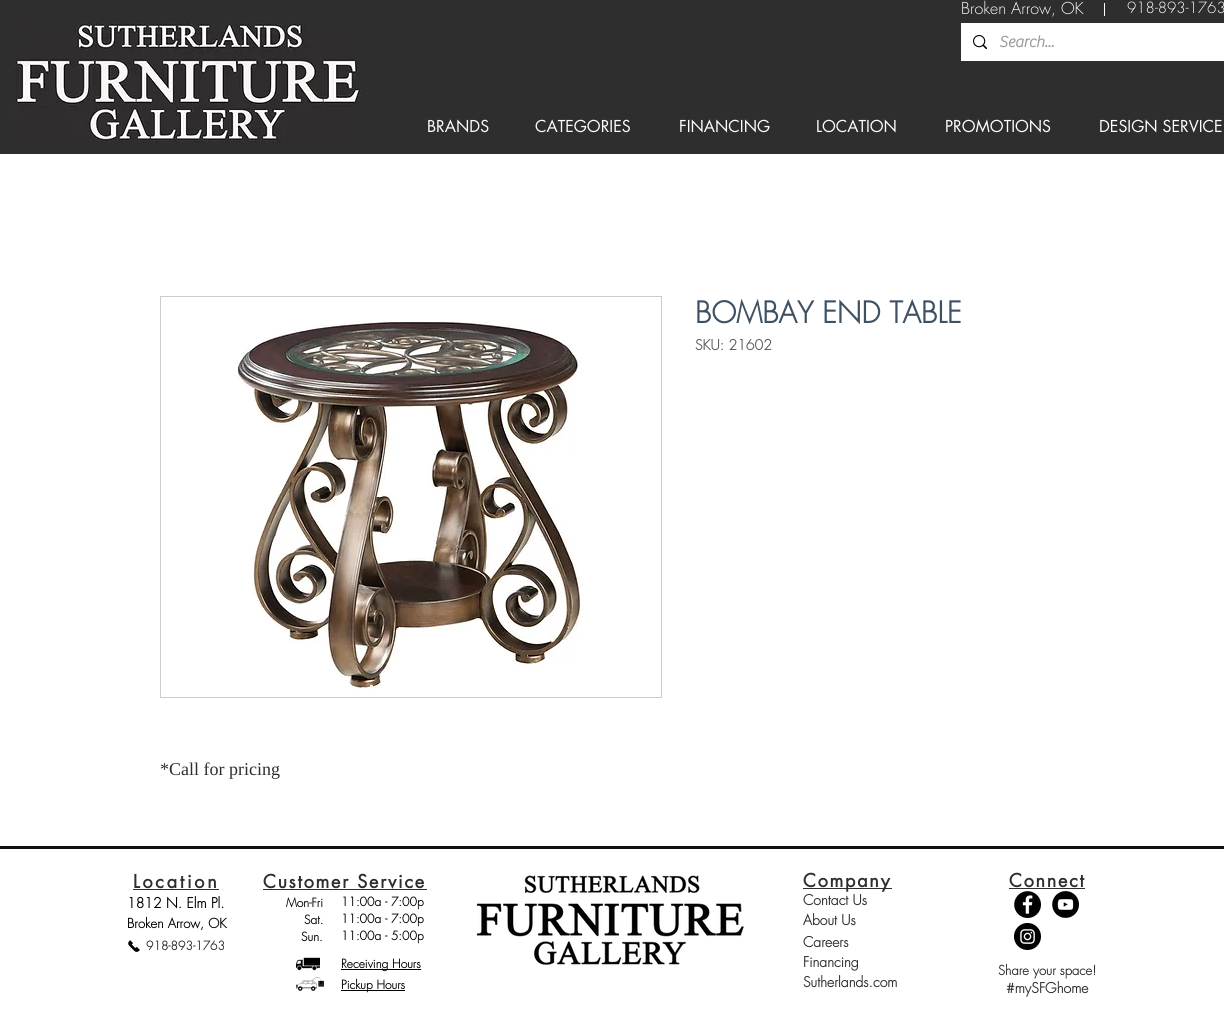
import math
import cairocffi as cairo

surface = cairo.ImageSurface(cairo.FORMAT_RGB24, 1224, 1031)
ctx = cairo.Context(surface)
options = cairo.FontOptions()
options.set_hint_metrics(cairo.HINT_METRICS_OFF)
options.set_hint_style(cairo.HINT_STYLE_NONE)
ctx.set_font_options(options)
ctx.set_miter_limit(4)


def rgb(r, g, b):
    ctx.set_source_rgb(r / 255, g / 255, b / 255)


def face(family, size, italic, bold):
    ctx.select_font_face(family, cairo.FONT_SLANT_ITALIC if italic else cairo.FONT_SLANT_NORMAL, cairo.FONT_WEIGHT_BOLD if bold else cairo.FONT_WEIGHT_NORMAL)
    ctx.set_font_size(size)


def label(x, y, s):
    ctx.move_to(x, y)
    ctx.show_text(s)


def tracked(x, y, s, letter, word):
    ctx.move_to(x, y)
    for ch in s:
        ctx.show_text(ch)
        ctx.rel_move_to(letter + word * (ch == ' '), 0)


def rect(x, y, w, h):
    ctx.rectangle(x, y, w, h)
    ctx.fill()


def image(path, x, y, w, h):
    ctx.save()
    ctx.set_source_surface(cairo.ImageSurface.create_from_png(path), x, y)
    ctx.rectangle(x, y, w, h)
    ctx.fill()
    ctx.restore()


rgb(255, 255, 255)
ctx.paint()
rgb(47, 46, 46)
rect(0, 0, 1224, 154)
face('futura Light', 16, 0, 0)
rgb(255, 255, 255)
label(961, 14, 'Broken Arrow, OK')
rect(1104, 3, 1, 13)
face('futura Light', 15, 0, 0)
label(1127, 13, '918-893-1763')
image('image0.png', 14, 23, 348, 120)
rect(961, 23, 263, 38)
image('image1.png', 973, 35, 14, 14)
face('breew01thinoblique', 16, 0, 1)
rgb(153, 153, 153)
label(999, 47, 'Search...')
face('futura', 16, 0, 0)
rgb(255, 255, 255)
label(427, 132, 'BRANDS')
label(535, 132, 'CATEGORIES')
label(679, 132, 'FINANCING')
label(816, 132, 'LOCATION')
label(945, 132, 'PROMOTIONS')
label(1099, 132, 'DESIGN SERVICE')
face('futura', 29, 0, 1)
rgb(62, 81, 98)
label(695, 323, 'BOMBAY END TABLE')
face('futura', 14, 0, 1)
rgb(96, 94, 94)
label(695, 350, 'SKU: 21602')
ctx.rectangle(160.5, 296.5, 501, 401)
rgb(204, 204, 204)
ctx.set_line_width(1)
ctx.stroke()
image('image2.png', 237, 321, 346, 368)
face('Liberation Serif', 18, 0, 0)
rgb(47, 46, 46)
label(160, 775, '*Call for pricing')
rgb(15, 15, 15)
rect(0, 846, 1224, 3)
face('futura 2', 18, 0, 1)
rgb(47, 46, 46)
tracked(133, 888, 'Location', 2.75, 0)
rect(133, 889, 86, 1)
tracked(263, 888, 'Customer Service', 1.75, 0)
rect(263, 889, 164, 1)
image('image3.png', 476, 875, 268, 90)
rect(803, 888, 89, 1)
tracked(803, 887, 'Company', 1.75, 0)
tracked(1009, 887, 'Connect', 1.75, 0)
rect(1009, 888, 76, 1)
face('futura', 14, 0, 1)
rgb(0, 0, 0)
label(127, 908, '1812 N. Elm Pl.')
face('futura', 13, 0, 1)
label(127, 928, 'Broken Arrow, OK')
face('futura', 12, 0, 1)
label(286, 907, 'Mon-Fri')
label(304, 924, 'Sat.')
label(301, 941, 'Sun.')
label(341, 906, '11:00a - 7:00p')
label(341, 923, '11:00a - 7:00p')
label(341, 940, '11:00a - 5:00p')
face('futura', 14, 0, 1)
rgb(47, 46, 46)
label(803, 905, 'Contact Us')
image('image4.png', 1014, 891, 27, 27)
image('image5.png', 1014, 923, 27, 27)
image('image6.png', 1052, 891, 27, 27)
label(803, 925, 'About Us')
image('image7.png', 128, 940, 12, 12)
face('futura', 12, 0, 1)
label(146, 950, '918-893-1763')
face('futura', 14, 0, 1)
label(803, 947, 'Careers')
image('image8.png', 296, 957, 24, 14)
rgb(0, 0, 0)
rect(341, 969, 80, 1)
face('futura', 12, 0, 1)
label(341, 968, 'Receiving Hours')
face('futura', 14, 0, 1)
rgb(47, 46, 46)
label(803, 967, 'Financing')
face('futura', 13, 0, 1)
label(998, 975, 'Share your space!')
face('futura', 14, 0, 1)
label(1006, 993, '#mySFGhome')
image('image9.png', 296, 977, 28, 14)
rgb(0, 0, 0)
rect(341, 990, 64, 1)
face('futura', 12, 0, 1)
label(341, 989, 'Pickup Hours')
face('futura', 14, 0, 1)
rgb(47, 46, 46)
label(803, 987, 'Sutherlands.com')
surface.write_to_png('render.png')
